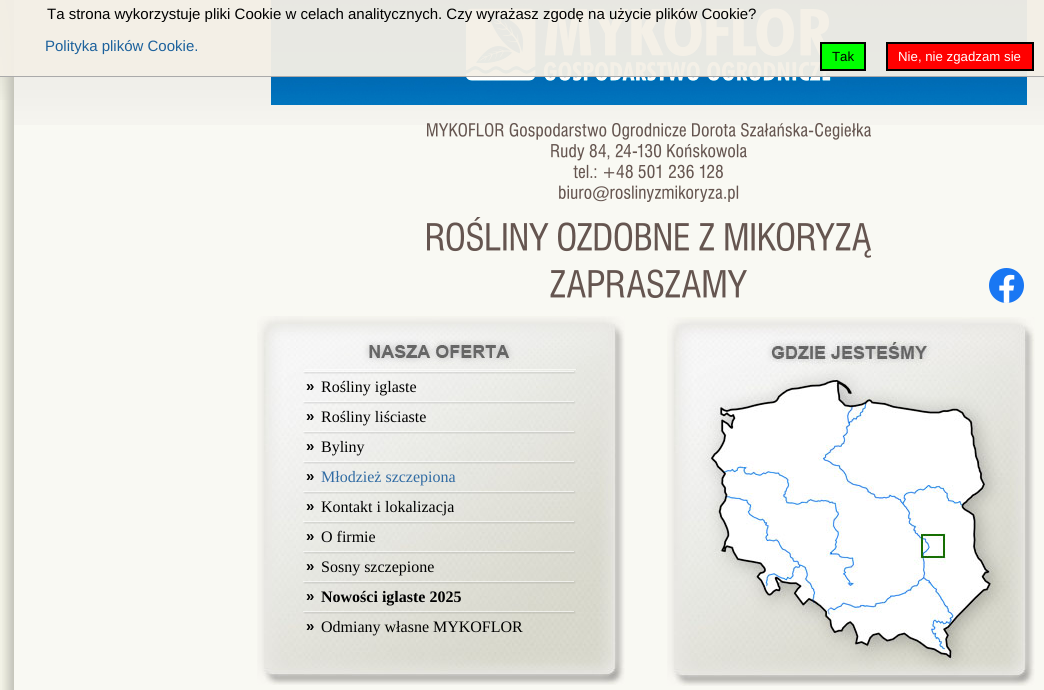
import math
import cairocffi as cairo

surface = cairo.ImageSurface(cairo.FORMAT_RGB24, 1044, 690)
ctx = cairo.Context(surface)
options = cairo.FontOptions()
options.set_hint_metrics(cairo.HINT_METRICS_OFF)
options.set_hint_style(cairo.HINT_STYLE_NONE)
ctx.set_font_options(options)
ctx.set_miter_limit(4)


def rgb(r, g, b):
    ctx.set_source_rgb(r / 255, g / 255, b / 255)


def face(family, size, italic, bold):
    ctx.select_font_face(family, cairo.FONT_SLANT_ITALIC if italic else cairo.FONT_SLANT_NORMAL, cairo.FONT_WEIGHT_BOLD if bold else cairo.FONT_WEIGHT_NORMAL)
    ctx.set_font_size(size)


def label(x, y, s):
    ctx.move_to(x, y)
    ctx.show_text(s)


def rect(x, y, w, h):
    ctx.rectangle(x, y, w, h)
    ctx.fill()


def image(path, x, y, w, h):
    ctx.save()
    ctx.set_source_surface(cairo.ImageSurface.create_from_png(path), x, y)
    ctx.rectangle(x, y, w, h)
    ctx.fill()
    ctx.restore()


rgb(242, 242, 230)
ctx.paint()
image('image0.png', 0, 0, 14, 100)
image('image1.png', 2, 0, 12, 202)
image('image2.png', 14, 0, 1030, 125)
image('image3.png', 271, 0, 756, 105)
ctx.set_source_rgba(0.957, 0.941, 0.902, 0.95)
rect(0, 0, 1044, 76)
rgb(170, 170, 170)
rect(0, 76, 1044, 1)
ctx.save()
ctx.rectangle(37, 5, 970, 17)
ctx.clip()
face('Liberation Sans', 15, 0, 0)
rgb(0, 0, 0)
label(47, 19, 'Ta strona wykorzystuje pliki Cookie w celach analitycznych. Czy wyrażasz zgodę na użycie plików Cookie?')
ctx.restore()
face('Liberation Sans', 15, 0, 0)
rgb(28, 97, 156)
label(45, 51, 'Polityka plików Cookie.')
rgb(0, 255, 0)
ctx.rectangle(821, 43, 44, 27)
ctx.fill_preserve()
rgb(0, 0, 0)
ctx.stroke()
face('Liberation Sans', 13.25, 0, 0)
label(832, 61, 'Tak')
rgb(255, 0, 0)
ctx.rectangle(887, 43, 146, 27)
ctx.fill_preserve()
rgb(0, 0, 0)
ctx.stroke()
rgb(255, 255, 255)
label(898, 61, 'Nie, nie zgadzam sie')
rgb(249, 249, 243)
rect(14, 125, 1030, 565)
image('image4.png', 427, 123, 444, 79)
image('image5.png', 2, 202, 12, 488)
image('image6.png', 427, 217, 444, 81)
image('image7.png', 989, 268, 35, 35)
image('image8.png', 257, 316, 368, 369)
image('image9.png', 303, 316, 274, 54)
image('image10.png', 303, 371, 273, 3)
face('Liberation Sans', 15, 0, 1)
rgb(0, 0, 0)
label(306, 391, '»')
face('Liberation Serif', 16, 0, 0)
label(321, 392, 'Rośliny iglaste')
image('image11.png', 303, 401, 273, 3)
face('Liberation Sans', 15, 0, 1)
label(306, 421, '»')
face('Liberation Serif', 16, 0, 0)
label(321, 422, 'Rośliny liściaste')
image('image12.png', 303, 431, 273, 3)
face('Liberation Sans', 15, 0, 1)
label(306, 451, '»')
face('Liberation Serif', 16, 0, 0)
label(321, 452, 'Byliny')
image('image13.png', 303, 461, 273, 3)
face('Liberation Sans', 15, 0, 1)
label(306, 481, '»')
face('Liberation Serif', 16, 0, 0)
rgb(48, 107, 163)
label(321, 482, 'Młodzież szczepiona')
image('image14.png', 303, 491, 273, 3)
face('Liberation Sans', 15, 0, 1)
rgb(0, 0, 0)
label(306, 511, '»')
face('Liberation Serif', 16, 0, 0)
label(321, 512, 'Kontakt i lokalizacja')
image('image15.png', 303, 521, 273, 3)
face('Liberation Sans', 15, 0, 1)
label(306, 541, '»')
face('Liberation Serif', 16, 0, 0)
label(321, 542, 'O firmie')
image('image16.png', 303, 551, 273, 3)
face('Liberation Sans', 15, 0, 1)
label(306, 571, '»')
face('Liberation Serif', 16, 0, 0)
label(321, 572, 'Sosny szczepione')
image('image17.png', 303, 581, 273, 3)
face('Liberation Sans', 15, 0, 1)
label(306, 601, '»')
face('Liberation Serif', 16, 0, 1)
label(321, 602, 'Nowości iglaste 2025')
image('image18.png', 303, 611, 273, 3)
face('Liberation Sans', 15, 0, 1)
label(306, 631, '»')
face('Liberation Serif', 16, 0, 0)
label(321, 632, 'Odmiany własne MYKOFLOR')
image('image19.png', 667, 317, 368, 369)
surface.write_to_png('render.png')
